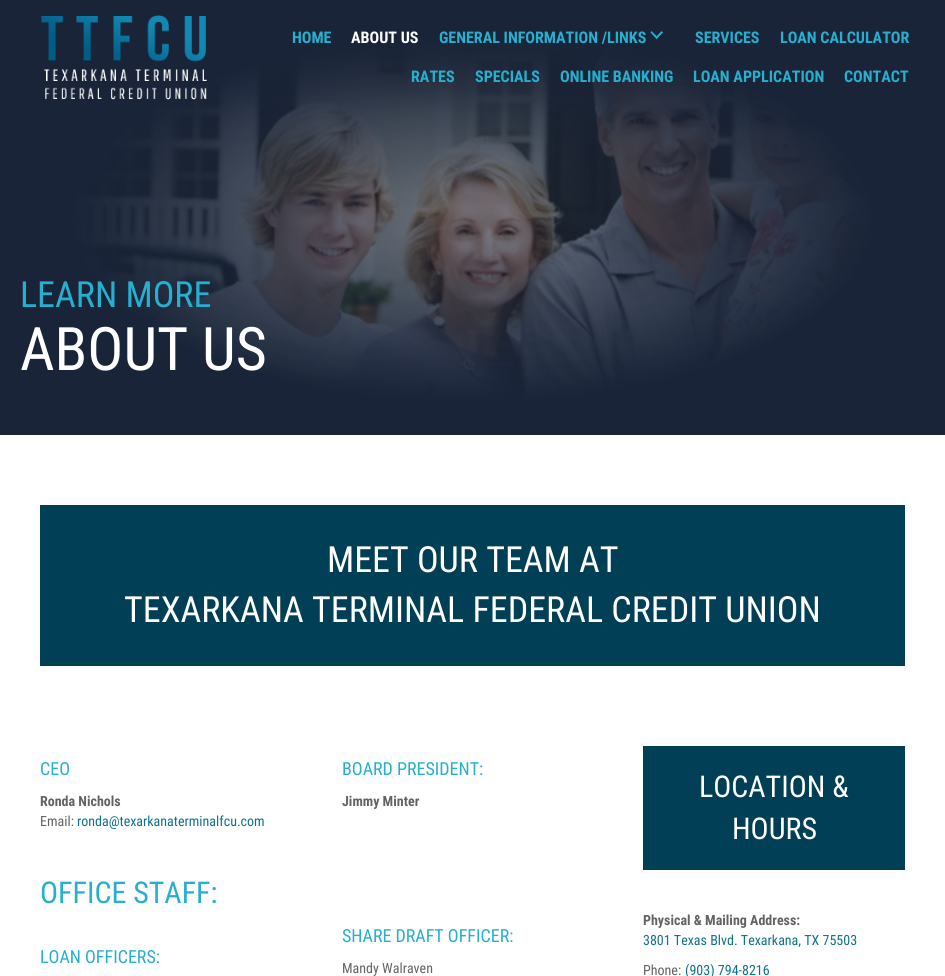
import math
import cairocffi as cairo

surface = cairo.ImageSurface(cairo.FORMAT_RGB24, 945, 976)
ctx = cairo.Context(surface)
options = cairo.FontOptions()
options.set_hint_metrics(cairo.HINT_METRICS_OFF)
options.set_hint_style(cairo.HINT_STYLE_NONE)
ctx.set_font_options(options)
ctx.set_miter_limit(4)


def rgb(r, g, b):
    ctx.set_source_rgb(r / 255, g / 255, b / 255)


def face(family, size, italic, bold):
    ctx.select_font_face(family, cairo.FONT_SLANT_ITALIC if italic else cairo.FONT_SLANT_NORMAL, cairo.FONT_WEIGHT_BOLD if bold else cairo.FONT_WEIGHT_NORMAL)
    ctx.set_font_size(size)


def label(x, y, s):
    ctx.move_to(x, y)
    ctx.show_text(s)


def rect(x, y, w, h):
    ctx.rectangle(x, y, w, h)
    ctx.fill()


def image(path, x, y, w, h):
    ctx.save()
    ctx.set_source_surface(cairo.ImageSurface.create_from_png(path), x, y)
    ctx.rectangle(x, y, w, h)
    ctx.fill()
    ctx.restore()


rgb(255, 255, 255)
ctx.paint()
image('image1.png', 0, 0, 945, 435)
image('image0.png', 41, 15, 166, 85)
face('Roboto Condensed', 16, 0, 1)
rgb(39, 175, 207)
label(292, 43, 'HOME')
rgb(255, 255, 255)
label(351, 43, 'ABOUT US')
rgb(39, 175, 207)
label(439, 43, 'GENERAL INFORMATION /LINKS')
ctx.new_path()
ctx.move_to(661.5, 31)
ctx.line_to(663, 32.5)
ctx.line_to(656.5, 39)
ctx.line_to(655.5, 37.5)
ctx.close_path()
ctx.fill()
ctx.new_path()
ctx.move_to(651.5, 31)
ctx.line_to(658, 37.5)
ctx.line_to(656.5, 39)
ctx.line_to(650.5, 32.5)
ctx.close_path()
ctx.fill()
label(695, 43, 'SERVICES')
label(780, 43, 'LOAN CALCULATOR')
label(411, 82, 'RATES')
label(475, 82, 'SPECIALS')
label(560, 82, 'ONLINE BANKING')
label(693, 82, 'LOAN APPLICATION')
label(844, 82, 'CONTACT')
face('Roboto Condensed', 36, 0, 0)
label(20, 307, 'LEARN MORE')
face('Roboto Condensed', 60, 0, 0)
rgb(255, 255, 255)
label(20, 370, 'ABOUT US')
rgb(1, 63, 87)
rect(40, 505, 865, 161)
face('Roboto Condensed', 36, 0, 0)
rgb(255, 255, 255)
label(327, 572, 'MEET OUR TEAM AT')
label(124, 622, 'TEXARKANA TERMINAL FEDERAL CREDIT UNION')
face('Roboto Condensed', 18, 0, 0)
rgb(39, 175, 207)
label(40, 775, 'CEO')
face('Roboto Condensed', 14, 0, 1)
rgb(99, 99, 99)
label(40, 806, 'Ronda Nichols')
face('Roboto Condensed', 14, 0, 0)
label(40, 826, 'Email:')
rgb(16, 113, 140)
label(77, 826, 'ronda@texarkanaterminalfcu.com')
face('Roboto Condensed', 30, 0, 0)
rgb(39, 175, 207)
label(40, 903, 'OFFICE STAFF:')
face('Roboto Condensed', 18, 0, 0)
label(40, 963, 'LOAN OFFICERS:')
label(342, 775, 'BOARD PRESIDENT:')
face('Roboto Condensed', 14, 0, 1)
rgb(99, 99, 99)
label(342, 806, 'Jimmy Minter')
face('Roboto Condensed', 18, 0, 0)
rgb(39, 175, 207)
label(342, 942, 'SHARE DRAFT OFFICER:')
face('Roboto Condensed', 14, 0, 0)
rgb(99, 99, 99)
label(342, 973, 'Mandy Walraven')
rgb(1, 63, 87)
rect(643, 746, 262, 124)
face('Roboto Condensed', 30, 0, 0)
rgb(255, 255, 255)
label(699, 797, 'LOCATION &')
label(732, 839, 'HOURS')
face('Roboto Condensed', 14, 0, 1)
rgb(99, 99, 99)
label(643, 925, 'Physical & Mailing Address:')
face('Roboto Condensed', 14, 0, 0)
rgb(16, 113, 140)
label(643, 945, '3801 Texas Blvd. Texarkana, TX 75503')
rgb(99, 99, 99)
label(643, 975, 'Phone:')
rgb(16, 113, 140)
label(685, 975, '(903) 794-8216')
surface.write_to_png('render.png')
